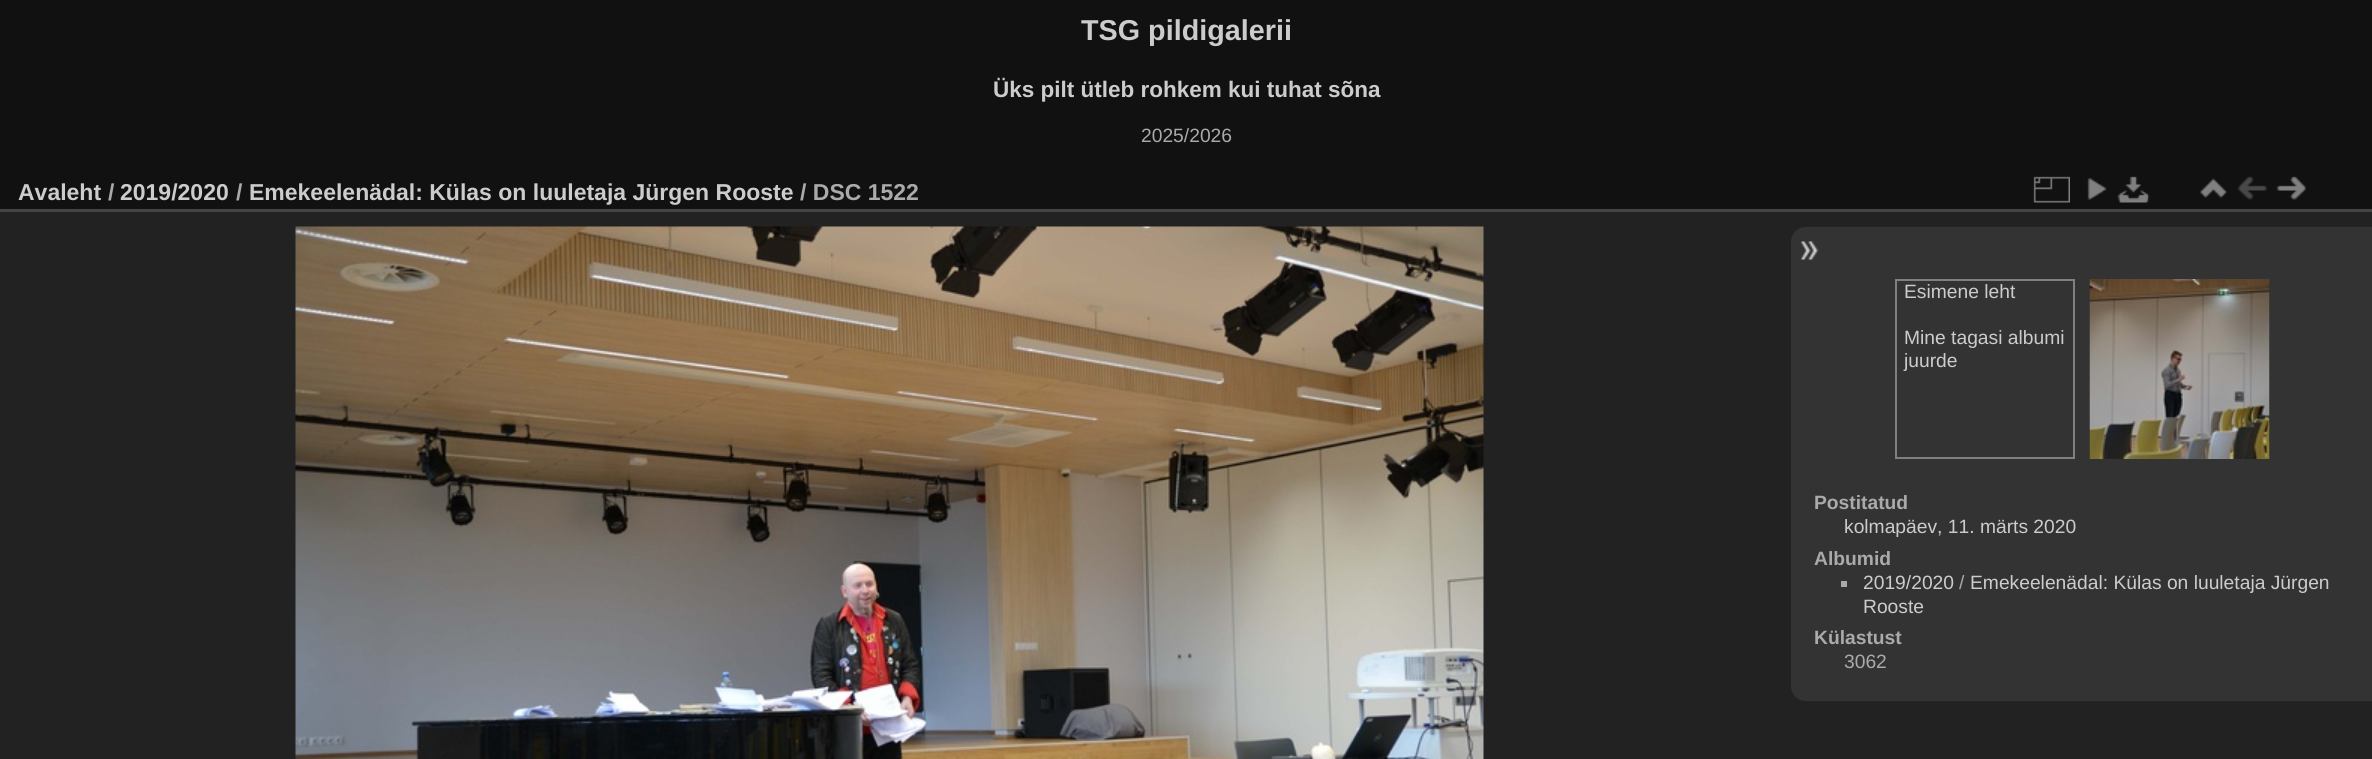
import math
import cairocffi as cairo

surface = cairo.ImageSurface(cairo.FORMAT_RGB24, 2372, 759)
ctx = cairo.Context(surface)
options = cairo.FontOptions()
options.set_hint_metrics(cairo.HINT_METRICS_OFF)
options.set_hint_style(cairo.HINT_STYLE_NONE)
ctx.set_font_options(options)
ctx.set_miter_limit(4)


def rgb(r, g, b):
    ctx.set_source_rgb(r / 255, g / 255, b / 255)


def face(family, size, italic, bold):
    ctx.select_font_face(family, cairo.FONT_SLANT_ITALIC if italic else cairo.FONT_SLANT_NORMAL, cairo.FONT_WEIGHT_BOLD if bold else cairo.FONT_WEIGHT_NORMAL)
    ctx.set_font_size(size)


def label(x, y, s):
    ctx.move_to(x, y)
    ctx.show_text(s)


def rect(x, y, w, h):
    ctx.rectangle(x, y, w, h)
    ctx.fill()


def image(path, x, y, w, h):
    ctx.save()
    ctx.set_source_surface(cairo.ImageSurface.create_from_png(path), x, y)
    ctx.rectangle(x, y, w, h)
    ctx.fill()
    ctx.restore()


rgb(17, 17, 17)
ctx.paint()
face('Liberation Sans', 28.75, 0, 1)
rgb(204, 204, 204)
label(1081, 40, 'TSG pildigalerii')
face('Liberation Sans', 22.5, 0, 1)
label(993, 97, 'Üks pilt ütleb rohkem kui tuhat sõna')
face('Liberation Sans', 19.25, 0, 0)
rgb(170, 170, 170)
label(1141, 142, '2025/2026')
rgb(34, 34, 34)
rect(0, 212, 2372, 547)
rgb(68, 68, 68)
rect(0, 209, 2372, 3)
face('Liberation Sans', 23, 0, 1)
rgb(204, 204, 204)
label(18, 200, 'Avaleht')
rgb(170, 170, 170)
label(108, 200, '/')
rgb(204, 204, 204)
label(120, 200, '2019/2020')
rgb(170, 170, 170)
label(236, 200, '/')
rgb(204, 204, 204)
label(249, 200, 'Emekeelenädal: Külas on luuletaja Jürgen Rooste')
rgb(170, 170, 170)
label(800, 200, '/ DSC 1522')
image('image0.png', 2033, 176, 37, 27)
image('image1.png', 2087, 178, 20, 22)
image('image2.png', 2117, 176, 33, 27)
image('image3.png', 2200, 178, 27, 21)
image('image4.png', 2238, 176, 29, 24)
image('image5.png', 2276, 176, 30, 24)
image('image6.png', 295, 226, 1189, 533)
rgb(51, 51, 51)
ctx.new_path()
ctx.move_to(1806, 227)
ctx.line_to(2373, 227)
ctx.line_to(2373, 701)
ctx.line_to(1806, 701)
ctx.curve_to(1797.5, 701, 1791, 694.5, 1791, 686)
ctx.line_to(1791, 242)
ctx.curve_to(1791, 233.5, 1797.5, 227, 1806, 227)
ctx.close_path()
ctx.fill()
image('image7.png', 1800, 241, 19, 19)
ctx.rectangle(1896, 280, 178, 178)
rgb(128, 128, 128)
ctx.stroke()
face('Liberation Sans', 19.25, 0, 0)
rgb(204, 204, 204)
label(1904, 298, 'Esimene leht')
label(1904, 344, 'Mine tagasi albumi')
label(1904, 367, 'juurde')
image('image8.png', 2089, 279, 181, 180)
face('Liberation Sans', 19.25, 0, 1)
rgb(170, 170, 170)
label(1814, 509, 'Postitatud')
face('Liberation Sans', 19.25, 0, 0)
rgb(204, 204, 204)
label(1844, 533, 'kolmapäev, 11. märts 2020')
face('Liberation Sans', 19.25, 0, 1)
rgb(170, 170, 170)
label(1814, 565, 'Albumid')
rect(1841, 581, 6, 6)
face('Liberation Sans', 19.25, 0, 0)
rgb(204, 204, 204)
label(1863, 589, '2019/2020')
rgb(170, 170, 170)
label(1959, 589, '/')
rgb(204, 204, 204)
label(1970, 589, 'Emekeelenädal: Külas on luuletaja Jürgen')
label(1863, 613, 'Rooste')
face('Liberation Sans', 19.25, 0, 1)
rgb(170, 170, 170)
label(1814, 644, 'Külastust')
face('Liberation Sans', 19.25, 0, 0)
label(1844, 668, '3062')
surface.write_to_png('render.png')
